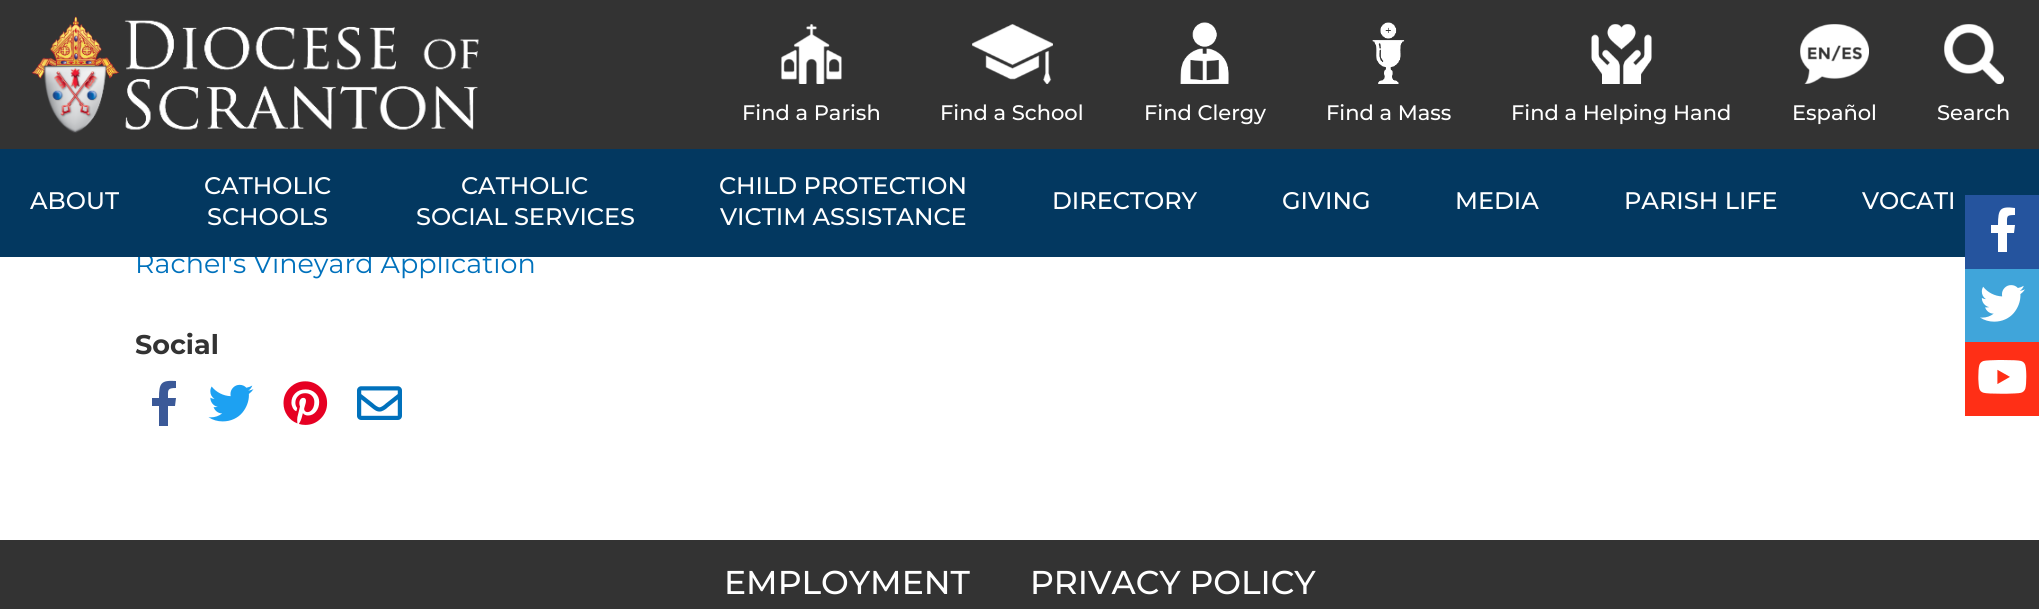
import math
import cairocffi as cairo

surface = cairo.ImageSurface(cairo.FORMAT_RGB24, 2039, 609)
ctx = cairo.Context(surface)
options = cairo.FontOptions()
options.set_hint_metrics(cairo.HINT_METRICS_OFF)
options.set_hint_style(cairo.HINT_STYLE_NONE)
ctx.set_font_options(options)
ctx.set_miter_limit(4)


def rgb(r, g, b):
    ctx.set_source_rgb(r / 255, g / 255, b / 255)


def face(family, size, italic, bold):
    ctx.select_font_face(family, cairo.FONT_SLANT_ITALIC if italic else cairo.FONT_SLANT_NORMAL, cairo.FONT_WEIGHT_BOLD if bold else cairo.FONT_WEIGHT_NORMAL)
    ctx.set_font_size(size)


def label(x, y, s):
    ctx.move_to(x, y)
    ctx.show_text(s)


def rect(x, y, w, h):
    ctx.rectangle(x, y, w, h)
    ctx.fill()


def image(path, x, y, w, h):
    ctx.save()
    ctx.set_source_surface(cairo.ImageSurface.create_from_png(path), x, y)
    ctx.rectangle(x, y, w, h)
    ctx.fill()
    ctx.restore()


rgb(255, 255, 255)
ctx.paint()
rgb(51, 51, 51)
rect(0, 0, 2039, 149)
image('image0.png', 31, 16, 448, 117)
image('image1.png', 781, 24, 61, 60)
face('Montserrat Medium', 21, 0, 0)
rgb(255, 255, 255)
label(742, 120, 'Find a Parish')
image('image2.png', 972, 24, 81, 60)
label(940, 120, 'Find a School')
image('image3.png', 1180, 22, 49, 62)
label(1144, 120, 'Find Clergy')
image('image4.png', 1372, 22, 33, 62)
label(1326, 120, 'Find a Mass')
image('image5.png', 1591, 24, 61, 60)
label(1511, 120, 'Find a Helping Hand')
image('image6.png', 1800, 24, 69, 60)
label(1792, 120, 'Español')
image('image7.png', 1944, 24, 60, 60)
label(1937, 120, 'Search')
face('Montserrat', 27, 0, 0)
rgb(0, 113, 188)
label(135, 273, 'Rachel\'s Vineyard Application')
rgb(3, 56, 96)
rect(0, 149, 2039, 108)
face('Montserrat Medium', 24, 0, 0)
rgb(255, 255, 255)
label(30, 209, 'ABOUT')
label(204, 194, 'CATHOLIC')
label(207, 225, 'SCHOOLS')
label(461, 194, 'CATHOLIC')
label(416, 225, 'SOCIAL SERVICES')
label(719, 194, 'CHILD PROTECTION')
label(720, 225, 'VICTIM ASSISTANCE')
label(1052, 209, 'DIRECTORY')
label(1282, 209, 'GIVING')
label(1455, 209, 'MEDIA')
label(1624, 209, 'PARISH LIFE')
label(1862, 209, 'VOCATI')
face('Montserrat', 27, 0, 1)
rgb(51, 51, 51)
label(135, 354, 'Social')
rgb(59, 89, 152)
ctx.new_path()
ctx.move_to(175, 406)
ctx.line_to(168, 406)
ctx.line_to(168, 426)
ctx.line_to(159, 426)
ctx.line_to(159, 406)
ctx.line_to(152, 406)
ctx.line_to(152, 398)
ctx.line_to(159, 398)
ctx.curve_to(159, 383, 161, 380, 176, 381)
ctx.line_to(176, 388)
ctx.curve_to(167, 388, 168, 390, 168, 398)
ctx.line_to(176, 398)
ctx.close_path()
ctx.fill()
image('image8.png', 208, 384, 46, 38)
image('image9.png', 283, 381, 45, 44)
image('image10.png', 357, 386, 45, 34)
rgb(51, 51, 51)
rect(0, 540, 2039, 69)
face('Montserrat Medium', 33, 0, 0)
rgb(255, 255, 255)
label(724, 594, 'EMPLOYMENT')
label(1030, 594, 'PRIVACY POLICY')
rgb(37, 84, 158)
rect(1965, 195, 74, 74)
rgb(255, 255, 255)
ctx.new_path()
ctx.move_to(2014, 233)
ctx.line_to(2007, 233)
ctx.line_to(2007, 252)
ctx.line_to(1998, 252)
ctx.line_to(1998, 233)
ctx.line_to(1991, 233)
ctx.line_to(1991, 225)
ctx.line_to(1998, 225)
ctx.curve_to(1998, 209, 2000, 206, 2015, 208)
ctx.line_to(2015, 215)
ctx.curve_to(2006, 215, 2007, 216, 2007, 225)
ctx.line_to(2015, 225)
ctx.close_path()
ctx.fill()
rgb(64, 165, 218)
rect(1965, 269, 74, 73)
image('image11.png', 1980, 285, 45, 37)
rgb(255, 47, 22)
rect(1965, 342, 74, 74)
image('image12.png', 1978, 360, 49, 34)
surface.write_to_png('render.png')
